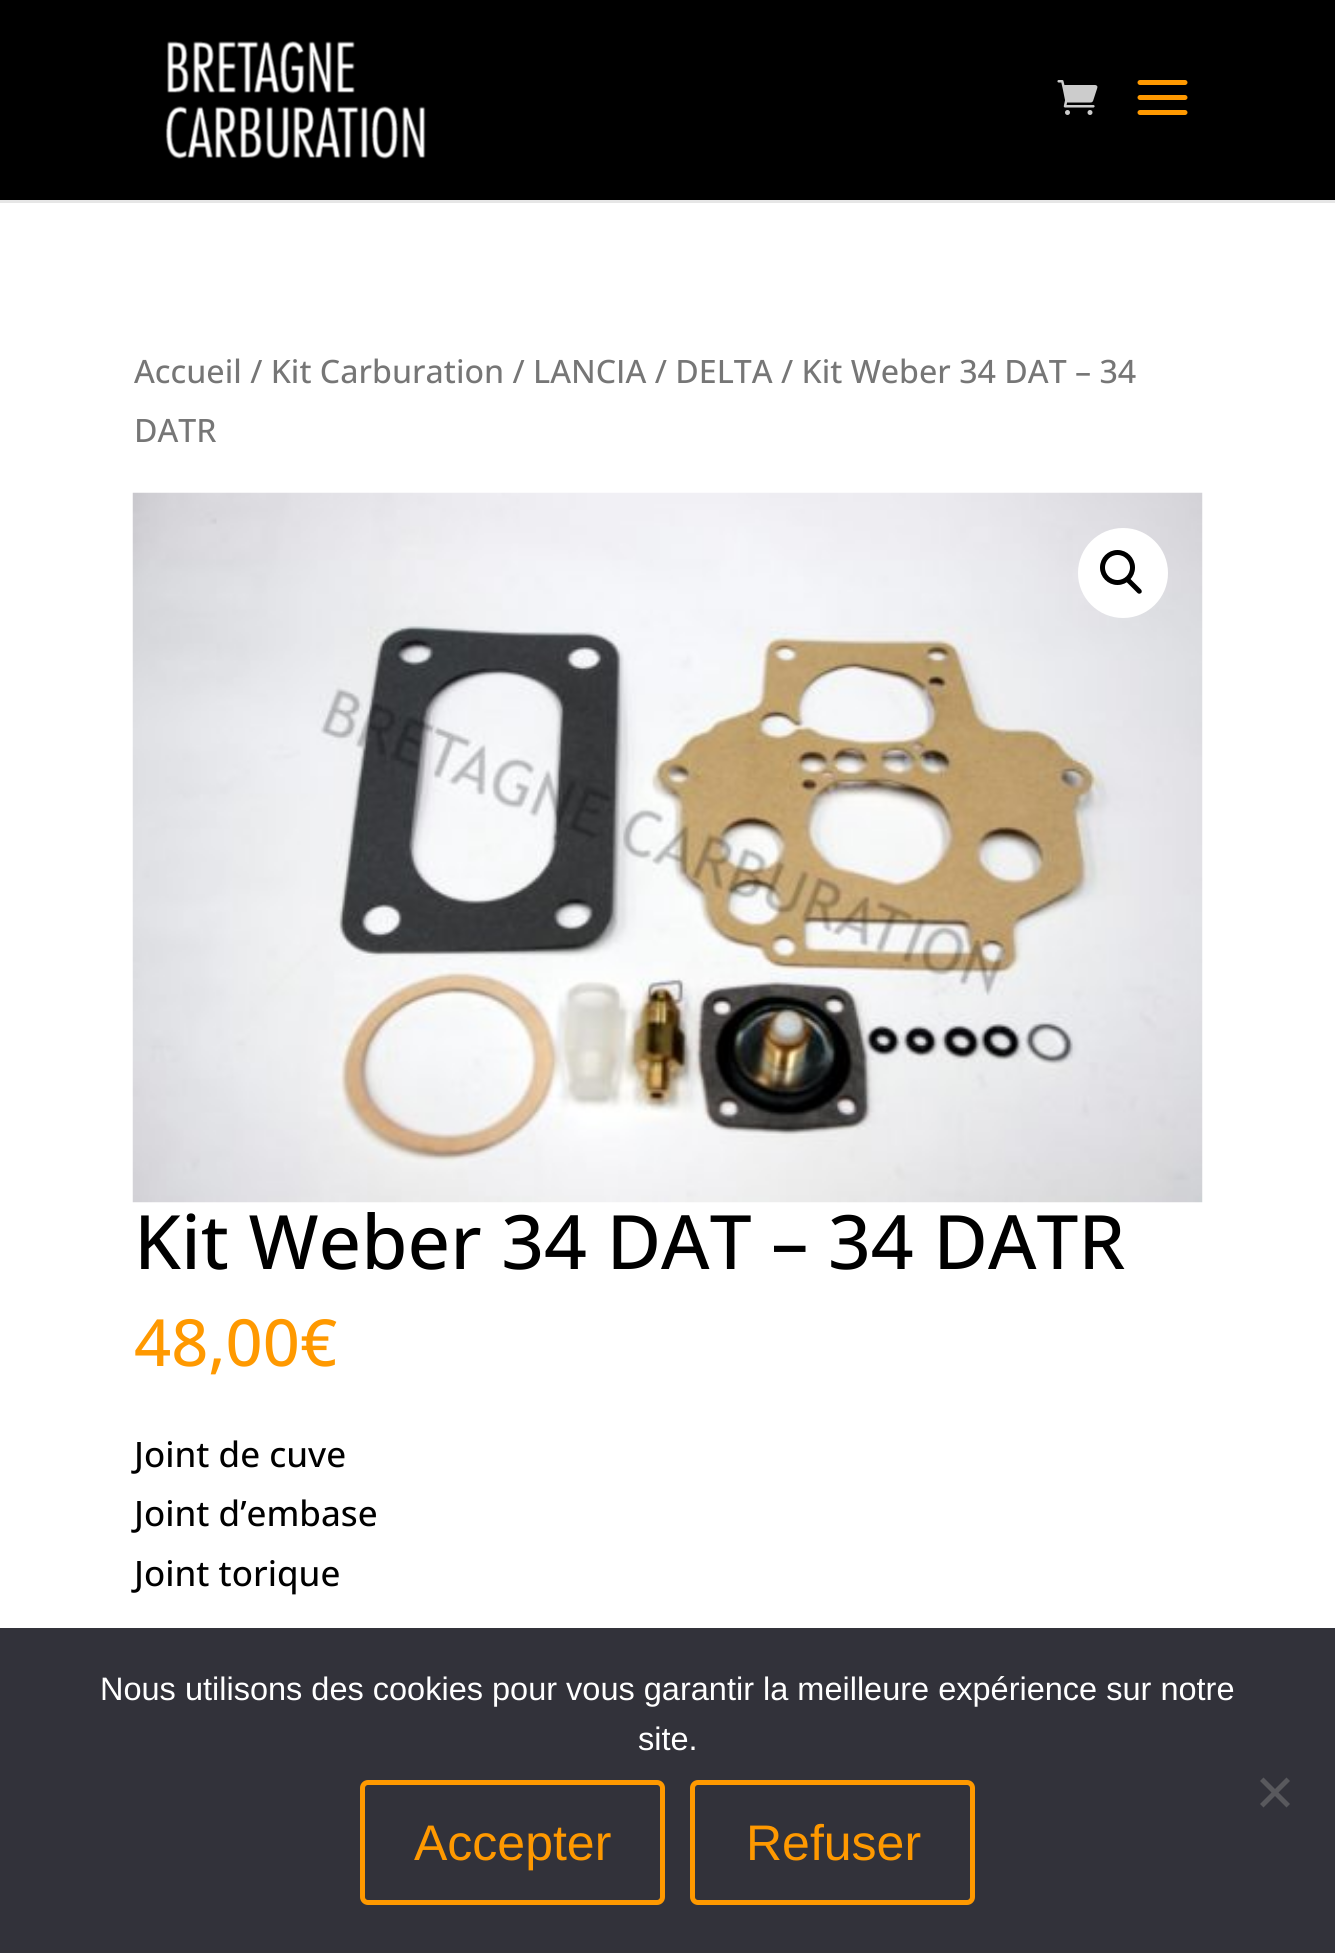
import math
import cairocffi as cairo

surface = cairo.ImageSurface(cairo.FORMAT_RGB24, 1335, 1953)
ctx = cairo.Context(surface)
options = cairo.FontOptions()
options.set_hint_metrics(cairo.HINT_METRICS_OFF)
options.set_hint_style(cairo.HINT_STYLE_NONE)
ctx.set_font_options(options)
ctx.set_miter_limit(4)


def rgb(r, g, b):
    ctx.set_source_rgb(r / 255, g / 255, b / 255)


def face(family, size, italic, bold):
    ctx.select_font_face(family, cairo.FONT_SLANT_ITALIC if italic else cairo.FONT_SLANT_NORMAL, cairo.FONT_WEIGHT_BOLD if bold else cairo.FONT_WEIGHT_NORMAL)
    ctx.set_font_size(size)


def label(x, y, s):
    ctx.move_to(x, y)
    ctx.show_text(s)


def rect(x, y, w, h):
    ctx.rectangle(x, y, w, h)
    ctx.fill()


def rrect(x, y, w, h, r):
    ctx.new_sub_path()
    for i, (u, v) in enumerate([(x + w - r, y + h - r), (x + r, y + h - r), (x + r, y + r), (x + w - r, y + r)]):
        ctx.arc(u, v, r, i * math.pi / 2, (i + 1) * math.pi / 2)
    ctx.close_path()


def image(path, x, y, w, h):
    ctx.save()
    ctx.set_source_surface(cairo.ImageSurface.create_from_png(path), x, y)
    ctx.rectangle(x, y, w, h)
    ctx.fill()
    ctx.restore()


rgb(255, 255, 255)
ctx.paint()
rgb(230, 230, 230)
rect(0, 200, 1335, 3)
rgb(0, 0, 0)
rect(0, 0, 1335, 200)
image('image0.png', 165, 41, 261, 118)
image('image1.png', 1057, 80, 41, 35)
image('image2.png', 1137, 80, 51, 35)
face('Open Sans Medium', 32.2, 0, 0)
rgb(118, 118, 118)
label(134, 383, 'Accueil / Kit Carburation / LANCIA / DELTA / Kit Weber 34 DAT – 34')
label(134, 442, 'DATR')
image('image3.png', 132, 492, 1071, 711)
rgb(255, 255, 255)
ctx.arc(1123, 573, 45, 0, 2 * math.pi)
ctx.fill()
ctx.arc(1117.5, 567.5, 15, 0, 2 * math.pi)
rgb(0, 0, 0)
ctx.set_line_width(5)
ctx.stroke()
ctx.new_path()
ctx.move_to(1127, 579)
ctx.curve_to(1128, 578, 1129.5, 578, 1130.5, 579)
ctx.line_to(1141, 589.5)
ctx.curve_to(1142, 590.5, 1142, 592.5, 1141, 593)
ctx.curve_to(1140, 594, 1138.5, 594, 1137.5, 593)
ctx.line_to(1127, 582.5)
ctx.curve_to(1126, 581.5, 1126, 580, 1127, 579)
ctx.close_path()
ctx.fill()
face('Open Sans Medium', 75, 0, 0)
label(134, 1269, 'Kit Weber 34 DAT – 34 DATR')
face('Open Sans Medium', 65, 0, 0)
rgb(255, 153, 0)
label(134, 1366, '48,00€')
face('Open Sans Medium', 35, 0, 0)
rgb(0, 0, 0)
label(134, 1467, 'Joint de cuve')
label(134, 1526, 'Joint d’embase')
label(134, 1586, 'Joint torique')
rgb(50, 50, 58)
rect(0, 1628, 1335, 325)
face('Liberation Sans', 32.5, 0, 0)
rgb(255, 255, 255)
label(100, 1700, 'Nous utilisons des cookies pour vous garantir la meilleure expérience sur notre')
label(638, 1750, 'site.')
rgb(89, 89, 93)
ctx.new_path()
ctx.move_to(1286.5, 1777.5)
ctx.line_to(1290, 1781)
ctx.line_to(1263.5, 1807.5)
ctx.line_to(1260, 1804)
ctx.close_path()
ctx.fill()
ctx.new_path()
ctx.move_to(1260, 1781)
ctx.line_to(1263.5, 1777.5)
ctx.line_to(1290, 1804)
ctx.line_to(1286.5, 1807.5)
ctx.close_path()
ctx.fill()
rrect(362.5, 1782.5, 300, 120, 5.5)
rgb(255, 153, 0)
ctx.stroke()
face('Liberation Sans', 50, 0, 0)
label(414, 1860, 'Accepter')
rrect(692.5, 1782.5, 280, 120, 5.5)
ctx.stroke()
label(746, 1860, 'Refuser')
surface.write_to_png('render.png')
